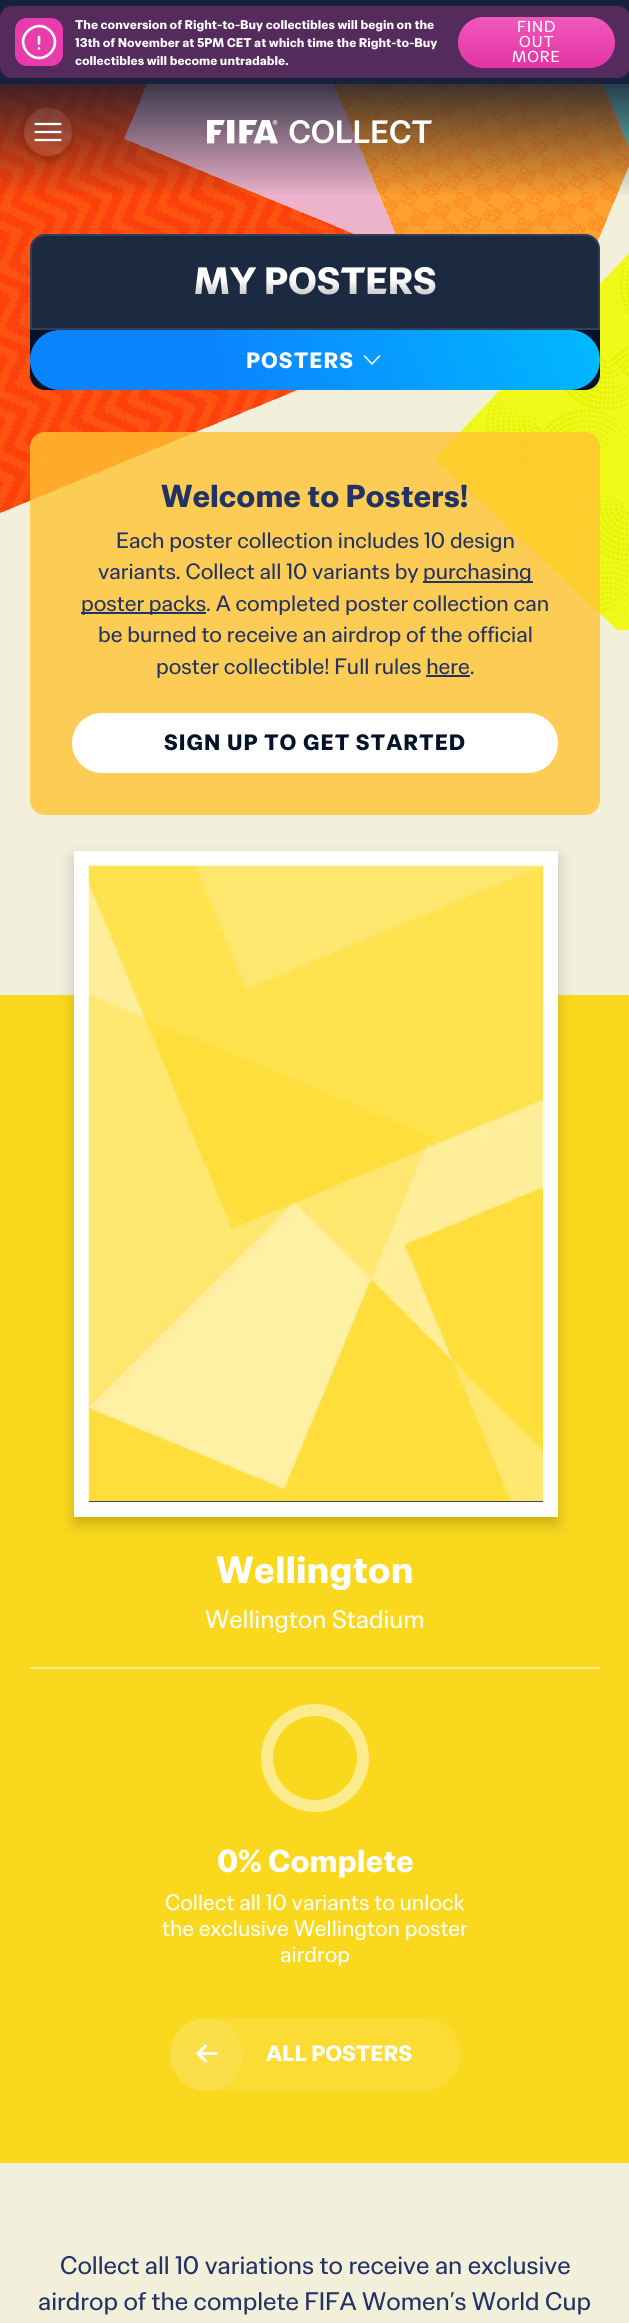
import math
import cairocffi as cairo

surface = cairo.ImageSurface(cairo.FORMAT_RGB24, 629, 2323)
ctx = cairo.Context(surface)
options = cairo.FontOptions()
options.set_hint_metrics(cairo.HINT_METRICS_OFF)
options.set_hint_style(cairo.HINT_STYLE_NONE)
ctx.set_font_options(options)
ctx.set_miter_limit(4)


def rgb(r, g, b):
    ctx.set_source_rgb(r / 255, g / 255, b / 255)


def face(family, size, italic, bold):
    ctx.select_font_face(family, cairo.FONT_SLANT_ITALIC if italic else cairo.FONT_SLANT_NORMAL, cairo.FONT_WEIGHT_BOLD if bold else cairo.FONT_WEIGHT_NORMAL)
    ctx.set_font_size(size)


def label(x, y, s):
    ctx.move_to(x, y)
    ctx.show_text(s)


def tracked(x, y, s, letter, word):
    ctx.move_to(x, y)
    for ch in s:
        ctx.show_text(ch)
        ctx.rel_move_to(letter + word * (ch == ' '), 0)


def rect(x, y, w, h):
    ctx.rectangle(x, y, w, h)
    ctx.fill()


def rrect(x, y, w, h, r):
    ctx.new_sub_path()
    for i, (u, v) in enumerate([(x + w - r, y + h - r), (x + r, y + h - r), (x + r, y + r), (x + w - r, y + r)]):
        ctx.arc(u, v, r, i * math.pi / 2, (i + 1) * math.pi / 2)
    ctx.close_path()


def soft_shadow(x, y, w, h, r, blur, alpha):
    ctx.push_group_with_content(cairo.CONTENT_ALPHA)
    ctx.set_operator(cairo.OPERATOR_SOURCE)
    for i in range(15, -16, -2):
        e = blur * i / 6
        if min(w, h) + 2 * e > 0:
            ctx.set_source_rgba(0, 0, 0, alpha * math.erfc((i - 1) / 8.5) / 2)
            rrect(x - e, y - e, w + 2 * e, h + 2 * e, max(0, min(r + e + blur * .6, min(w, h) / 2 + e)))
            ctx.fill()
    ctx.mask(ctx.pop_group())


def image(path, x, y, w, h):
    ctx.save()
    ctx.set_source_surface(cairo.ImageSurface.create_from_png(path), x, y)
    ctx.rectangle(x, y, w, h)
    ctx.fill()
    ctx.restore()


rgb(242, 240, 219)
ctx.paint()
rgb(22, 34, 59)
rect(0, 0, 629, 84)
rgb(85, 42, 93)
rrect(0, 6, 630, 72, 12)
ctx.fill()
rgb(233, 60, 172)
rrect(15, 18, 48, 48, 12)
ctx.fill()
ctx.new_path()
ctx.move_to(39, 37)
ctx.line_to(39, 43.5)
ctx.move_to(55, 42)
ctx.curve_to(55, 50.5, 47.5, 58, 39, 58)
ctx.curve_to(30.5, 58, 23.5, 50.5, 23, 42)
ctx.curve_to(23, 33.5, 30.5, 26.5, 39, 26)
ctx.curve_to(47.5, 26, 55, 33.5, 55, 42)
ctx.close_path()
ctx.move_to(39, 48.5)
ctx.line_to(39, 48.5)
ctx.close_path()
rgb(255, 255, 255)
ctx.set_line_width(2.6)
ctx.set_line_cap(cairo.LINE_CAP_ROUND)
ctx.set_line_join(cairo.LINE_JOIN_ROUND)
ctx.stroke()
face('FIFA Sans', 12, 0, 1)
label(75, 29, 'The conversion of Right-to-Buy collectibles will begin on the')
label(75, 47, '13th of November at 5PM CET at which time the Right-to-Buy')
label(75, 65, 'collectibles will become untradable.')
gradient = cairo.LinearGradient(536, 16, 536, 68)
gradient.add_color_stop_rgba(0, 0.941, 0.349, 0.733, 1)
gradient.add_color_stop_rgba(1, 0.894, 0.204, 0.651, 1)
ctx.set_source(gradient)
rrect(458, 17, 157, 51, 25.5)
ctx.fill()
face('FIFA Sans', 15, 0, 0)
rgb(255, 255, 255)
tracked(517, 32, 'FIND', 1, 0)
tracked(519, 47, 'OUT', 1, 0)
tracked(512, 62, 'MORE', 1, 0)
image('image0.png', 0, 84, 629, 546)
gradient = cairo.LinearGradient(315, 84, 315, 198)
gradient.add_color_stop_rgba(0, 0.059, 0.09, 0.165, 0.8)
gradient.add_color_stop_rgba(1, 0.059, 0.09, 0.165, 0)
ctx.set_source(gradient)
rect(0, 84, 629, 111)
ctx.save()
ctx.set_fill_rule(cairo.FILL_RULE_EVEN_ODD)
ctx.new_path()
ctx.move_to(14, 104)
ctx.line_to(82, 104)
ctx.line_to(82, 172)
ctx.line_to(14, 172)
ctx.close_path()
ctx.move_to(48, 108)
ctx.curve_to(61.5, 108, 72, 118.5, 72, 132)
ctx.curve_to(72, 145.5, 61.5, 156, 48, 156)
ctx.curve_to(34.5, 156, 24, 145.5, 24, 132)
ctx.curve_to(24, 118.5, 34.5, 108, 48, 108)
ctx.close_path()
ctx.clip()
rgb(0, 0, 0)
soft_shadow(24, 114, 48, 48, 24, 3, 0.15)
ctx.restore()
ctx.set_source_rgba(1, 1, 1, 0.1)
ctx.arc(48, 132, 24, 0, 2 * math.pi)
ctx.fill()
ctx.new_path()
ctx.move_to(35.5, 124)
ctx.line_to(60.5, 124)
ctx.move_to(35.5, 132)
ctx.line_to(60.5, 132)
ctx.move_to(35.5, 140)
ctx.line_to(60.5, 140)
rgb(255, 255, 255)
ctx.set_line_width(2.2)
ctx.stroke()
image('image1.png', 207, 120, 225, 24)
rgb(3, 19, 44)
rrect(30, 234, 570, 156, 15)
ctx.fill()
ctx.set_source_rgba(1, 1, 1, 0.1)
ctx.new_path()
ctx.move_to(45, 234)
ctx.line_to(585, 234)
ctx.curve_to(593.5, 234, 600, 240.5, 600, 249)
ctx.line_to(600, 330)
ctx.line_to(30, 330)
ctx.line_to(30, 249)
ctx.curve_to(30, 240.5, 36.5, 234, 45, 234)
ctx.close_path()
ctx.fill()
ctx.new_path()
ctx.move_to(45, 235)
ctx.line_to(585, 235)
ctx.curve_to(592.5, 235, 599, 241.5, 599, 249)
ctx.line_to(599, 329)
ctx.line_to(31, 329)
ctx.line_to(31, 249)
ctx.curve_to(31, 241.5, 37.5, 235, 45, 235)
ctx.close_path()
ctx.set_line_width(2)
ctx.set_line_cap(cairo.LINE_CAP_BUTT)
ctx.set_line_join(cairo.LINE_JOIN_MITER)
ctx.stroke()
face('FIFA Sans', 36, 0, 1)
gradient = cairo.LinearGradient(315, 259, 315, 305)
gradient.add_color_stop_rgba(0.44, 1, 1, 1, 1)
gradient.add_color_stop_rgba(0.73, 0.824, 0.824, 0.824, 1)
ctx.set_source(gradient)
label(194, 294, 'MY POSTERS')
gradient = cairo.LinearGradient(458, -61, -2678, 1081)
gradient.add_color_stop_rgba(0, 0.004, 0.725, 1, 1)
gradient.add_color_stop_rgba(0.11, 0.043, 0.522, 1, 1)
gradient.add_color_stop_rgba(0.22, 0.043, 0.522, 1, 1)
gradient.add_color_stop_rgba(0.33, 0.416, 0.655, 0.953, 1)
gradient.add_color_stop_rgba(0.44, 0.004, 0.725, 1, 1)
gradient.add_color_stop_rgba(0.56, 0.318, 0.051, 0.918, 1)
gradient.add_color_stop_rgba(0.67, 0.416, 0.655, 0.953, 1)
gradient.add_color_stop_rgba(0.78, 0.318, 0.051, 0.918, 1)
gradient.add_color_stop_rgba(0.89, 0.914, 0.235, 0.675, 1)
gradient.add_color_stop_rgba(1, 0.616, 0.075, 0.427, 1)
ctx.set_source(gradient)
rrect(30, 330, 570, 60, 30)
ctx.fill()
face('FIFA Sans', 21, 0, 1)
rgb(255, 255, 255)
tracked(246, 368, 'POSTERS', 1.05, 0)
ctx.new_path()
ctx.move_to(379.5, 356)
ctx.line_to(372, 364)
ctx.line_to(364.5, 356)
ctx.set_line_width(1.5)
ctx.set_line_cap(cairo.LINE_CAP_ROUND)
ctx.set_line_join(cairo.LINE_JOIN_ROUND)
ctx.stroke()
ctx.set_source_rgba(1, 0.765, 0.2, 0.8)
rrect(30, 432, 570, 383, 15)
ctx.fill()
face('FIFA Sans', 30, 0, 1)
rgb(34, 50, 101)
label(161, 507, 'Welcome to Posters!')
face('FIFA Sans', 21, 0, 0)
label(116, 548, 'Each poster collection includes 10 design')
label(98, 579, 'variants. Collect all 10 variants by')
rect(423, 581, 110, 2)
label(423, 579, 'purchasing')
rect(81, 612, 125, 2)
label(81, 611, 'poster packs. A completed poster collection can')
label(98, 642, 'be burned to receive an airdrop of the official')
label(156, 674, 'poster collectible! Full rules here.')
rect(426, 675, 44, 2)
rgb(255, 255, 255)
rrect(72, 713, 486, 60, 30)
ctx.fill()
face('FIFA Sans', 21, 0, 1)
rgb(3, 19, 44)
tracked(164, 750, 'SIGN UP TO GET STARTED', 1.05, 0)
rgb(250, 216, 29)
rect(0, 995, 629, 1168)
rgb(0, 0, 0)
soft_shadow(74, 858, 484, 666, 0, 7.5, 0.2)
ctx.rectangle(81.5, 858.5, 469, 651)
rgb(255, 255, 255)
ctx.set_line_width(15)
ctx.set_line_cap(cairo.LINE_CAP_BUTT)
ctx.set_line_join(cairo.LINE_JOIN_MITER)
ctx.stroke()
rgb(3, 19, 44)
rect(89, 1501, 454, 1)
image('image2.png', 88, 865, 455, 637)
face('FIFA Sans', 36, 0, 1)
rgb(255, 255, 255)
label(216, 1583, 'Wellington')
face('FIFA Sans', 24, 0, 0)
label(205, 1628, 'Wellington Stadium')
rgb(253, 236, 142)
rect(30, 1667, 570, 2)
ctx.new_path()
ctx.move_to(315, 1710)
ctx.curve_to(341.5, 1710, 363, 1731.5, 363, 1758)
ctx.curve_to(363, 1784.5, 341.5, 1806, 315, 1806)
ctx.curve_to(288.5, 1806, 267, 1784.5, 267, 1758)
ctx.curve_to(267, 1731.5, 288.5, 1710, 315, 1710)
ctx.set_line_width(12)
ctx.stroke()
face('FIFA Sans', 30, 0, 1)
rgb(255, 255, 255)
label(217, 1872, '0% Complete')
face('FIFA Sans', 21, 0, 0)
label(165, 1910, 'Collect all 10 variants to unlock')
label(162, 1936, 'the exclusive Wellington poster')
label(280, 1962, 'airdrop')
rgb(251, 220, 52)
rrect(170, 2018, 291, 73, 36.5)
ctx.fill()
ctx.set_source_rgba(1, 1, 1, 0.1)
ctx.arc(206.5, 2054.5, 36.5, 0, 2 * math.pi)
ctx.fill()
ctx.new_path()
ctx.move_to(205.5, 2061)
ctx.line_to(198, 2053.5)
ctx.move_to(198, 2053.5)
ctx.line_to(205.5, 2046)
ctx.move_to(198, 2053.5)
ctx.line_to(216, 2053.5)
rgb(255, 255, 255)
ctx.set_line_width(3)
ctx.set_line_cap(cairo.LINE_CAP_ROUND)
ctx.set_line_join(cairo.LINE_JOIN_ROUND)
ctx.stroke()
face('FIFA Sans', 21, 0, 1)
label(266, 2061, 'ALL POSTERS')
face('FIFA Sans', 24, 0, 0)
rgb(34, 50, 101)
label(60, 2274, 'Collect all 10 variations to receive an exclusive')
label(38, 2310, 'airdrop of the complete FIFA Women’s World Cup')
surface.write_to_png('render.png')
